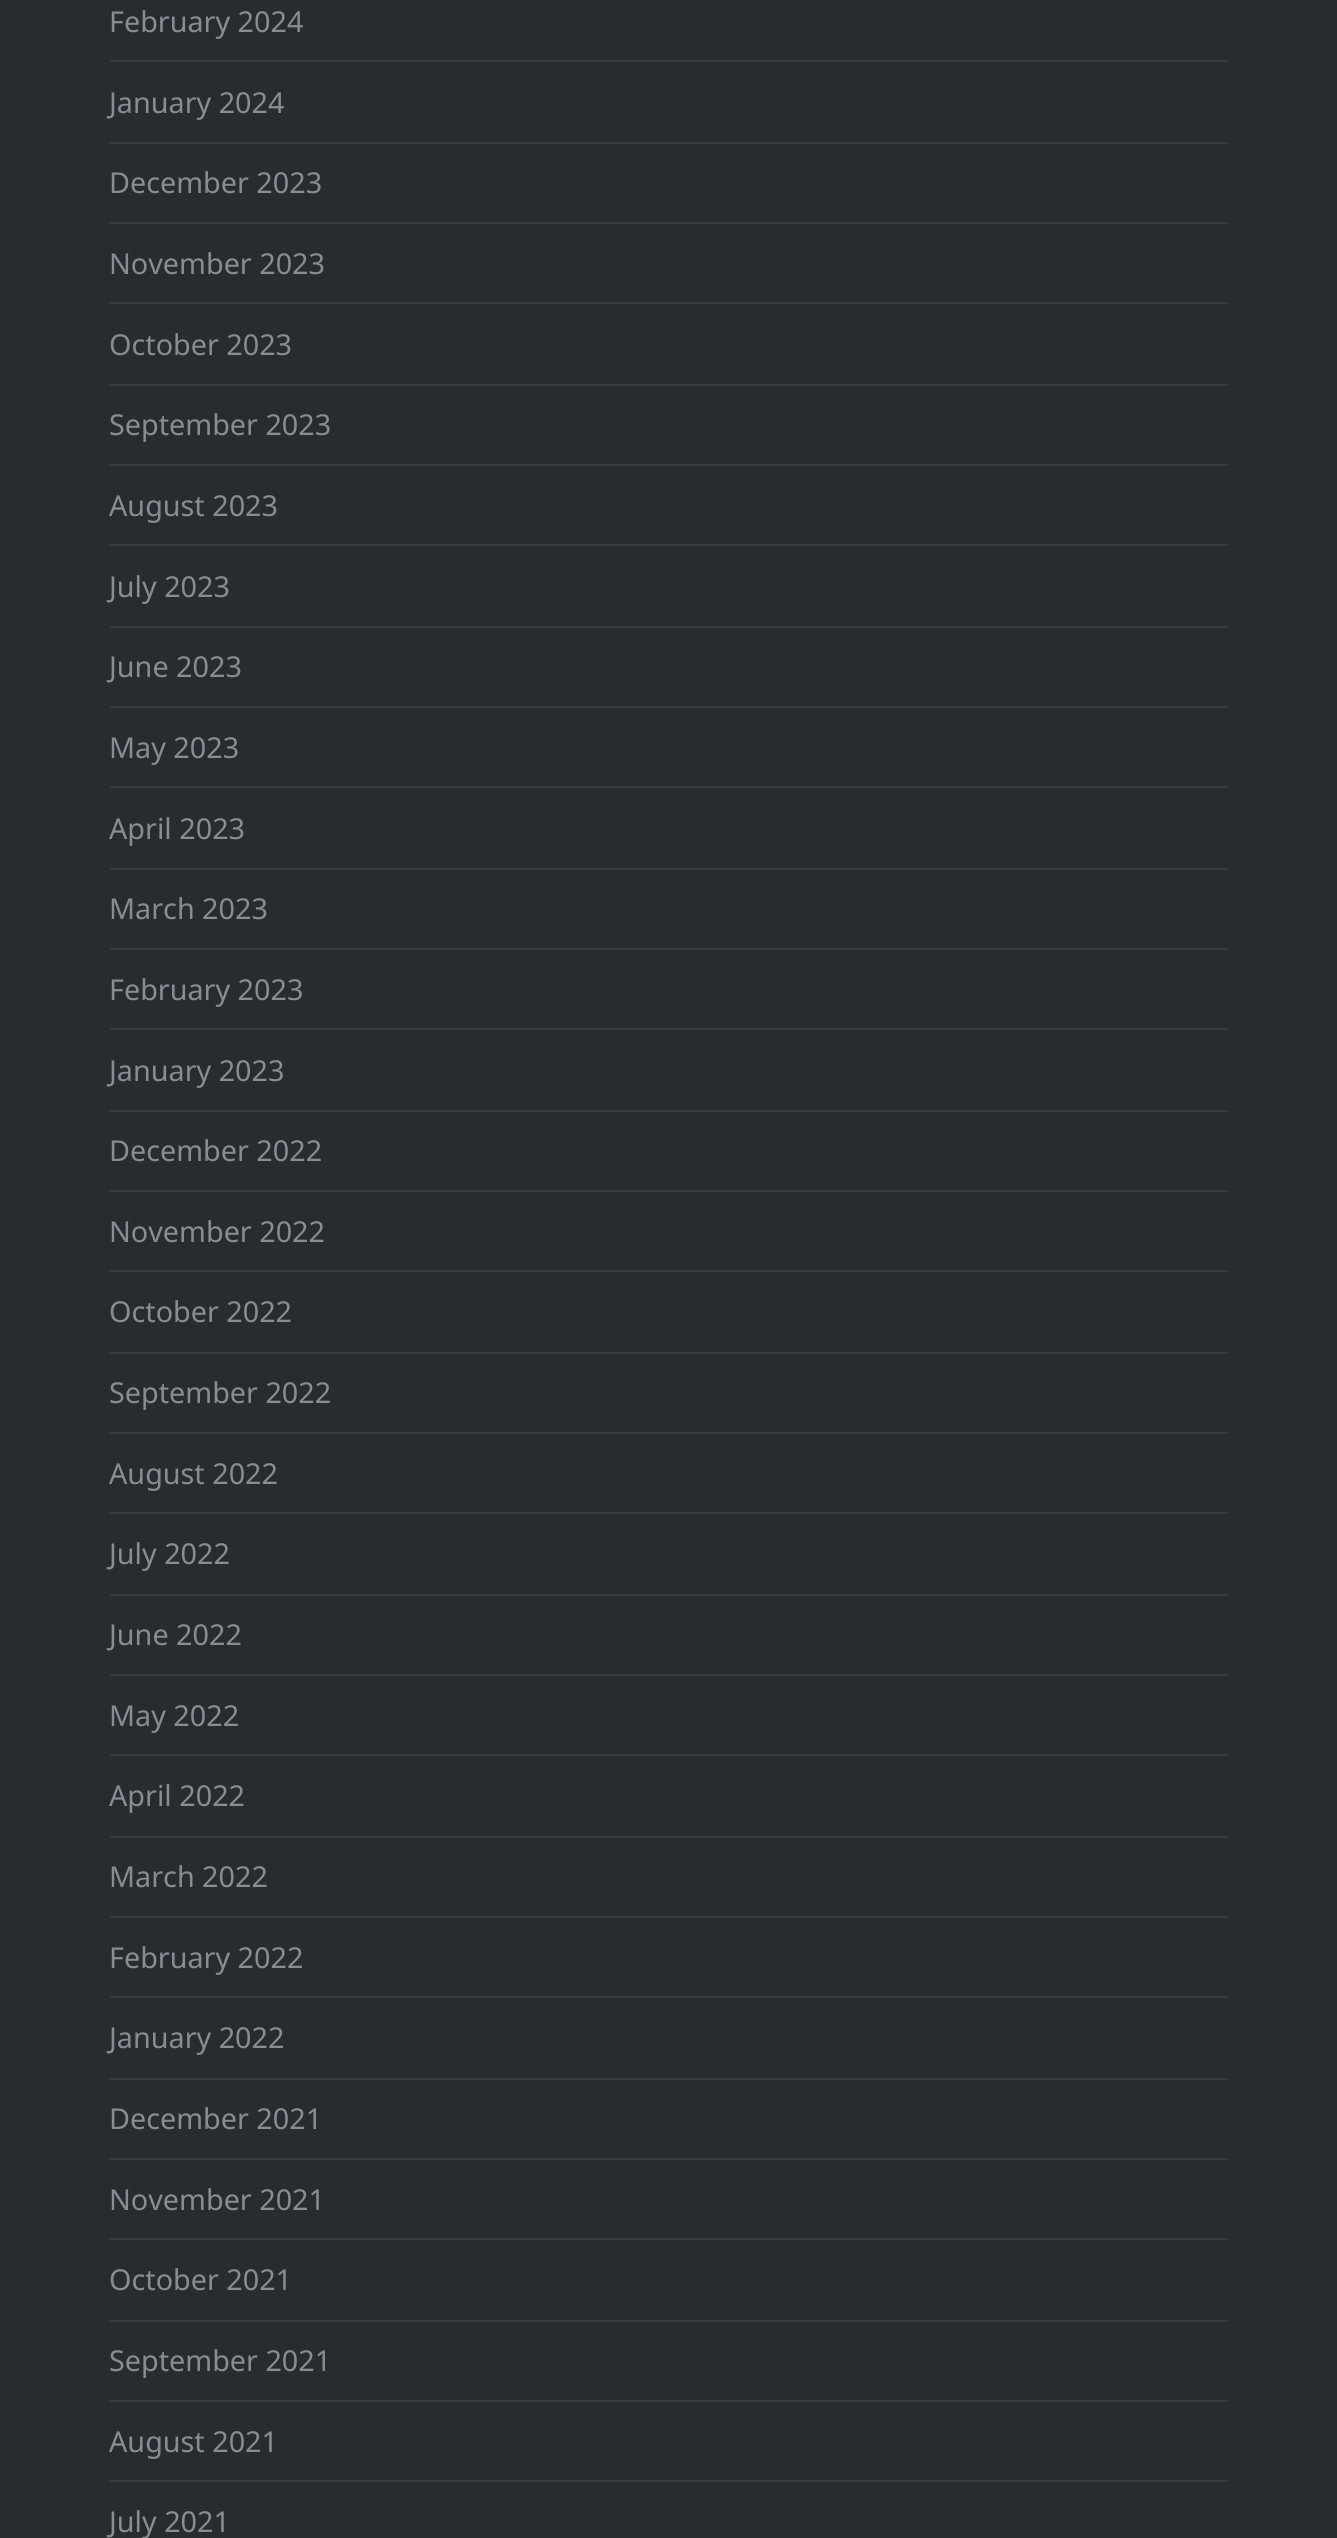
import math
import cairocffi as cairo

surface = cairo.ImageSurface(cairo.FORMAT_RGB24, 1337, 2538)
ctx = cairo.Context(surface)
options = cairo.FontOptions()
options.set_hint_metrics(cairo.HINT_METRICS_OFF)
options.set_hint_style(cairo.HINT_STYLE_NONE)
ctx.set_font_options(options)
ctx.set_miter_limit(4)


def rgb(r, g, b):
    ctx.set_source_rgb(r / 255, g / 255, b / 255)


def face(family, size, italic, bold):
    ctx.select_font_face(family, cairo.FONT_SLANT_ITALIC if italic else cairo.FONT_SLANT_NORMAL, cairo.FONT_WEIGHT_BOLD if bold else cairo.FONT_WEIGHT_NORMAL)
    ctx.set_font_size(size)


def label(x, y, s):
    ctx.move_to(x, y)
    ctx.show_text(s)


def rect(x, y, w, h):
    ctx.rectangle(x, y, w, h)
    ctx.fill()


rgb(41, 44, 47)
ctx.paint()
rgb(54, 59, 64)
rect(110, 60, 1118, 2)
face('Noto Sans', 28.75, 0, 0)
rgb(133, 141, 149)
label(109, 32, 'February 2024')
rgb(54, 59, 64)
rect(110, 142, 1118, 2)
rgb(133, 141, 149)
label(109, 113, 'January 2024')
rgb(54, 59, 64)
rect(110, 222, 1118, 2)
rgb(133, 141, 149)
label(109, 193, 'December 2023')
rgb(54, 59, 64)
rect(110, 302, 1118, 2)
rgb(133, 141, 149)
label(109, 274, 'November 2023')
rgb(54, 59, 64)
rect(110, 384, 1118, 2)
rgb(133, 141, 149)
label(109, 355, 'October 2023')
rgb(54, 59, 64)
rect(110, 464, 1118, 2)
rgb(133, 141, 149)
label(109, 435, 'September 2023')
rgb(54, 59, 64)
rect(110, 544, 1118, 2)
rgb(133, 141, 149)
label(109, 516, 'August 2023')
rgb(54, 59, 64)
rect(110, 626, 1118, 2)
rgb(133, 141, 149)
label(109, 597, 'July 2023')
rgb(54, 59, 64)
rect(110, 706, 1118, 2)
rgb(133, 141, 149)
label(109, 677, 'June 2023')
rgb(54, 59, 64)
rect(110, 786, 1118, 2)
rgb(133, 141, 149)
label(109, 758, 'May 2023')
rgb(54, 59, 64)
rect(110, 868, 1118, 2)
rgb(133, 141, 149)
label(109, 839, 'April 2023')
rgb(54, 59, 64)
rect(110, 948, 1118, 2)
rgb(133, 141, 149)
label(109, 919, 'March 2023')
rgb(54, 59, 64)
rect(110, 1028, 1118, 2)
rgb(133, 141, 149)
label(109, 1000, 'February 2023')
rgb(54, 59, 64)
rect(110, 1110, 1118, 2)
rgb(133, 141, 149)
label(109, 1081, 'January 2023')
rgb(54, 59, 64)
rect(110, 1190, 1118, 2)
rgb(133, 141, 149)
label(109, 1161, 'December 2022')
rgb(54, 59, 64)
rect(110, 1270, 1118, 2)
rgb(133, 141, 149)
label(109, 1242, 'November 2022')
rgb(54, 59, 64)
rect(110, 1352, 1118, 2)
rgb(133, 141, 149)
label(109, 1322, 'October 2022')
rgb(54, 59, 64)
rect(110, 1432, 1118, 2)
rgb(133, 141, 149)
label(109, 1403, 'September 2022')
rgb(54, 59, 64)
rect(110, 1512, 1118, 2)
rgb(133, 141, 149)
label(109, 1484, 'August 2022')
rgb(54, 59, 64)
rect(110, 1594, 1118, 2)
rgb(133, 141, 149)
label(109, 1564, 'July 2022')
rgb(54, 59, 64)
rect(110, 1674, 1118, 2)
rgb(133, 141, 149)
label(109, 1645, 'June 2022')
rgb(54, 59, 64)
rect(110, 1754, 1118, 2)
rgb(133, 141, 149)
label(109, 1726, 'May 2022')
rgb(54, 59, 64)
rect(110, 1836, 1118, 2)
rgb(133, 141, 149)
label(109, 1806, 'April 2022')
rgb(54, 59, 64)
rect(110, 1916, 1118, 2)
rgb(133, 141, 149)
label(109, 1887, 'March 2022')
rgb(54, 59, 64)
rect(110, 1996, 1118, 2)
rgb(133, 141, 149)
label(109, 1968, 'February 2022')
rgb(54, 59, 64)
rect(110, 2078, 1118, 2)
rgb(133, 141, 149)
label(109, 2048, 'January 2022')
rgb(54, 59, 64)
rect(110, 2158, 1118, 2)
rgb(133, 141, 149)
label(109, 2129, 'December 2021')
rgb(54, 59, 64)
rect(110, 2238, 1118, 2)
rgb(133, 141, 149)
label(109, 2210, 'November 2021')
rgb(54, 59, 64)
rect(110, 2320, 1118, 2)
rgb(133, 141, 149)
label(109, 2290, 'October 2021')
rgb(54, 59, 64)
rect(110, 2400, 1118, 2)
rgb(133, 141, 149)
label(109, 2371, 'September 2021')
rgb(54, 59, 64)
rect(110, 2480, 1118, 2)
rgb(133, 141, 149)
label(109, 2452, 'August 2021')
label(109, 2532, 'July 2021')
surface.write_to_png('render.png')
